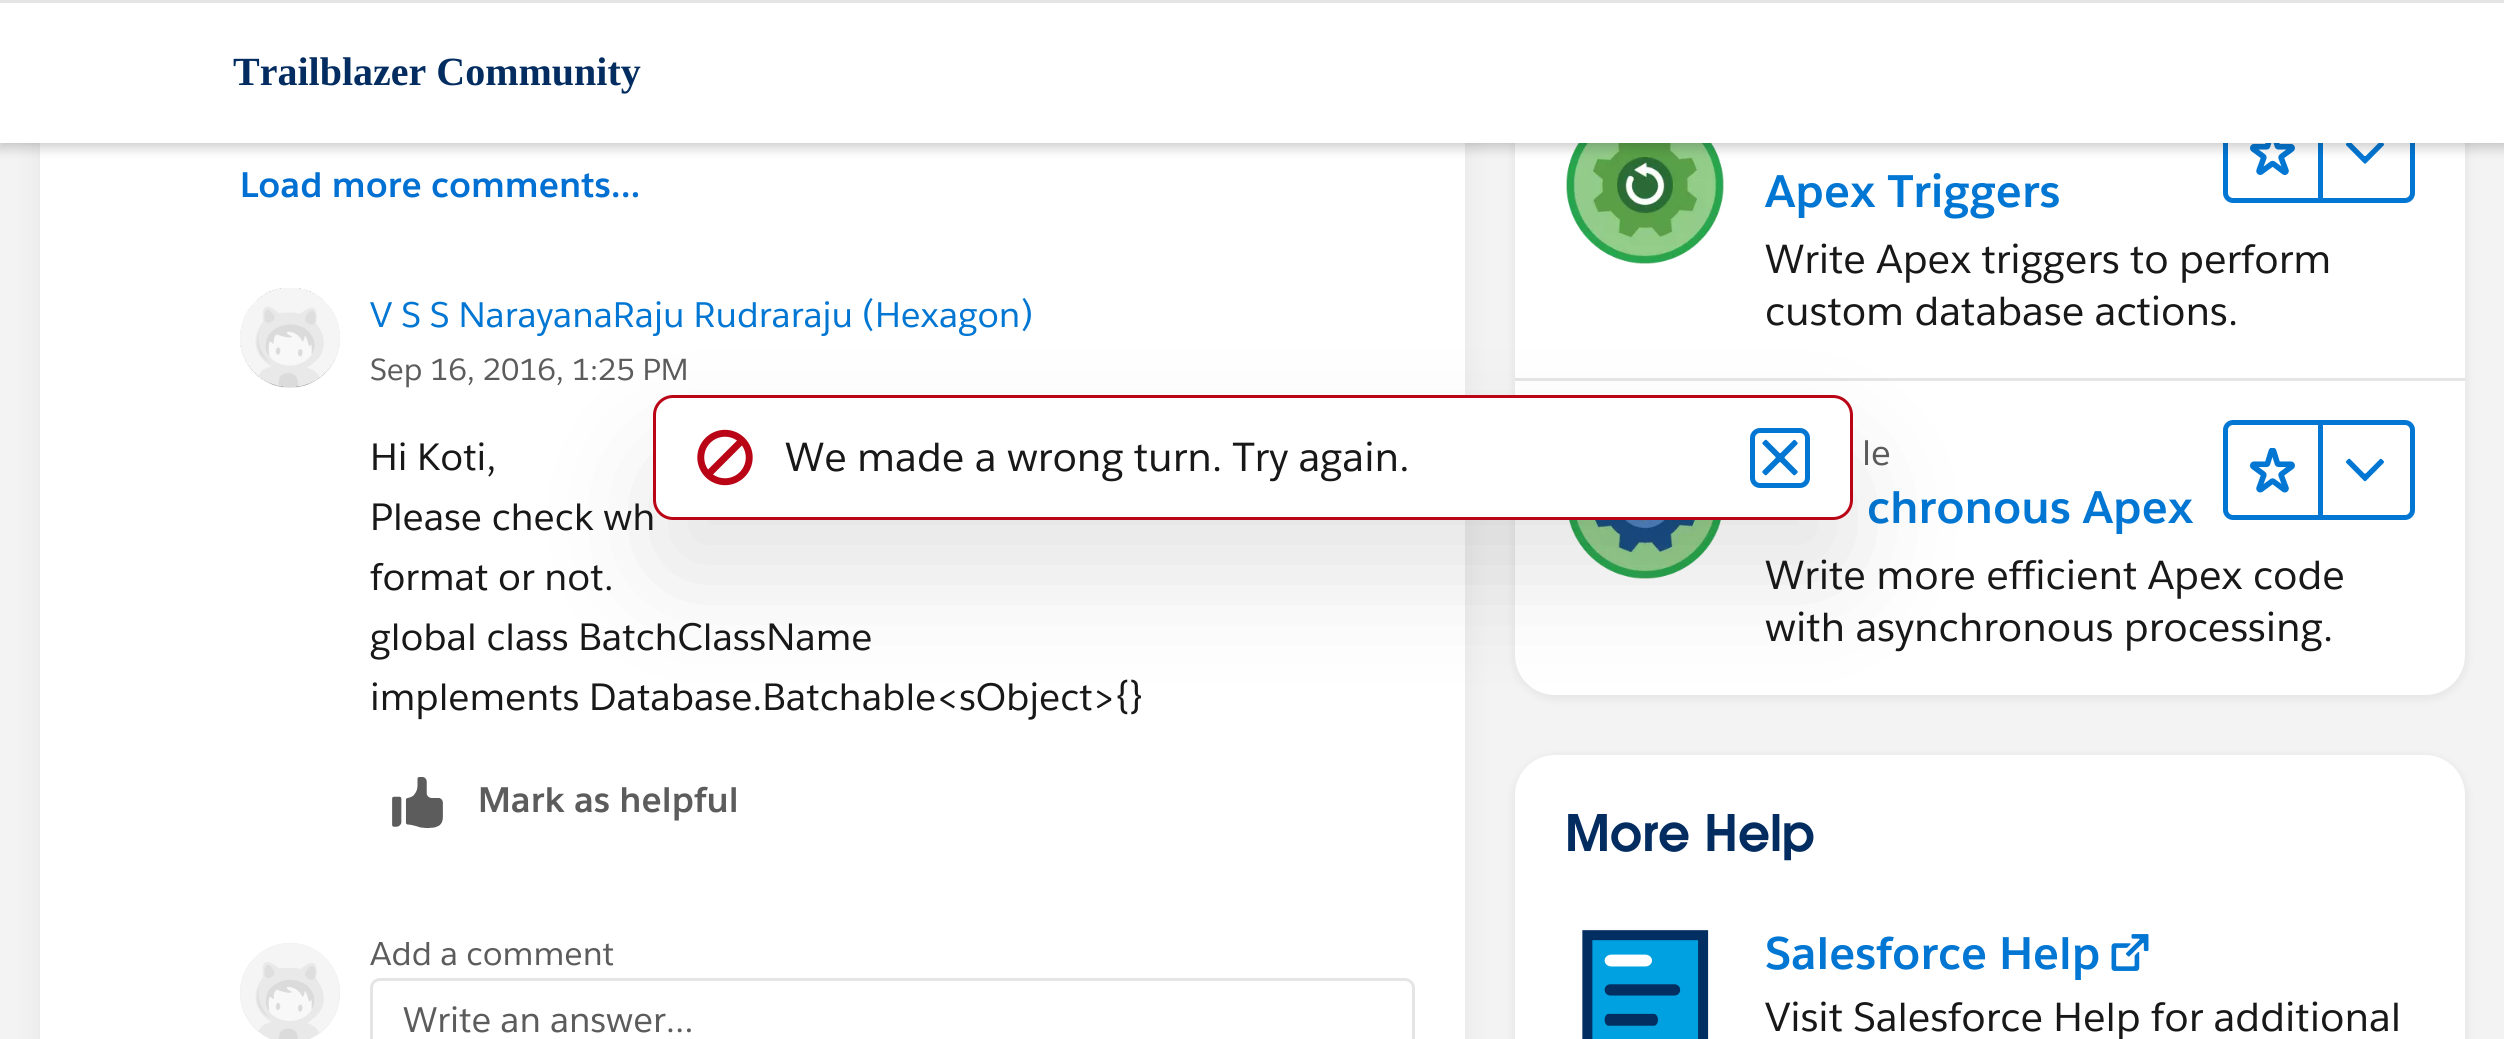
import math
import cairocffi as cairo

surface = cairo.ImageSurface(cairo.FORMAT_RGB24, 2504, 1039)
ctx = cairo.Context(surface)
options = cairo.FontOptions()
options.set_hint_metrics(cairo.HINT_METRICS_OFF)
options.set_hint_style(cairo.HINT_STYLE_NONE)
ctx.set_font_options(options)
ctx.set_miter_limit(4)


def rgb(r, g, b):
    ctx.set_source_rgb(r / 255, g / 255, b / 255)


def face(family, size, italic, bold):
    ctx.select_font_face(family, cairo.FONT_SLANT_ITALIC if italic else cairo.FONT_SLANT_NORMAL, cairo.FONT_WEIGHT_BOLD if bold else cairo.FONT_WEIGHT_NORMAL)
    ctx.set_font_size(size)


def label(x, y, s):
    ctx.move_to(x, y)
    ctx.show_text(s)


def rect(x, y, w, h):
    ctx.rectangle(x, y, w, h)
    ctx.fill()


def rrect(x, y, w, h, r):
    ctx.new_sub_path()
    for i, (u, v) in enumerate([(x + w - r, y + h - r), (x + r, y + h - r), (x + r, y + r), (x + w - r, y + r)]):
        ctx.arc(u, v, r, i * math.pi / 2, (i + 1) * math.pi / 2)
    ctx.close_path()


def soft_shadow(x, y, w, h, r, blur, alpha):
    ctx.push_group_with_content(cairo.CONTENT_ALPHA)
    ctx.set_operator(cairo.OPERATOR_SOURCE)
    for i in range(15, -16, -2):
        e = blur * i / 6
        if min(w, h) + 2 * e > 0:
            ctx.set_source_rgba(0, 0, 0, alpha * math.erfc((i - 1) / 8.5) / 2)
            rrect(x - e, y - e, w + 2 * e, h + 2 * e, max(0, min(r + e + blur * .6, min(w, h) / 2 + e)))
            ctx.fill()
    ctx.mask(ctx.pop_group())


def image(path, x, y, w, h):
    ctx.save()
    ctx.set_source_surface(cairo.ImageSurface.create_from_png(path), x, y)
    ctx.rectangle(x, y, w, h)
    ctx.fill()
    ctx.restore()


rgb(243, 243, 243)
ctx.paint()
rgb(24, 24, 24)
soft_shadow(45, -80, 1415, 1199, 35, 15, 0.09)
rgb(255, 255, 255)
rect(40, 143, 1425, 896)
rgb(24, 24, 24)
soft_shadow(1513, -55, 955, 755, 43, 4, 0.06)
rgb(255, 255, 255)
rrect(1515, -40, 950, 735, 40)
ctx.fill()
image('image3.png', 1566, 143, 158, 121)
rrect(2225.5, 107.5, 187, 93, 7.5)
rgb(1, 118, 211)
ctx.set_line_width(5)
ctx.stroke()
image('image4.png', 2250, 143, 45, 32)
rect(2318, 143, 5, 55)
image('image5.png', 2345, 143, 39, 21)
rgb(24, 24, 24)
soft_shadow(-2, 3, 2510, 147, 0, 5, 0.16)
soft_shadow(0, 0, 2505, 143, 0, 2.5, 0.08)
rgb(255, 255, 255)
rect(0, 3, 2504, 140)
rgb(229, 229, 229)
rect(0, 0, 2504, 3)
face('Liberation Serif', 40, 0, 1)
rgb(3, 45, 96)
label(233, 85, 'Trailblazer Community')
face('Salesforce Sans', 35, 0, 1)
rgb(0, 112, 210)
label(240, 197, 'Load more comments...')
rgb(229, 229, 229)
ctx.new_path()
ctx.arc(290, 338, 50, 0, 2 * math.pi)
ctx.fill()
image('image0.png', 240, 288, 100, 99)
face('Salesforce Sans', 35, 0, 0)
rgb(1, 118, 211)
label(370, 327, 'V S S NarayanaRaju Rudraraju (Hexagon)')
face('Salesforce Sans', 30, 0, 0)
rgb(92, 92, 92)
label(370, 380, 'Sep 16, 2016, 1:25 PM')
face('Salesforce Sans', 37.5, 0, 0)
rgb(24, 24, 24)
label(370, 470, 'Hi Koti,')
label(370, 530, 'Please check wh')
label(370, 590, 'format or not.')
label(370, 650, 'global class BatchClassName')
label(370, 710, 'implements Database.Batchable<sObject>{}')
image('image1.png', 392, 777, 51, 51)
face('Salesforce Sans', 35, 0, 1)
rgb(92, 92, 92)
label(478, 812, 'Mark as helpful')
rgb(229, 229, 229)
ctx.new_path()
ctx.arc(290, 993, 50, 0, 2 * math.pi)
ctx.fill()
image('image2.png', 240, 943, 100, 96)
face('Salesforce Sans', 32.5, 0, 0)
rgb(92, 92, 92)
label(370, 965, 'Add a comment')
rrect(371.5, 979.5, 1042, 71, 8.5)
rgb(229, 229, 229)
ctx.set_line_width(3)
ctx.stroke()
face('Salesforce Sans', 35, 0, 0)
rgb(92, 92, 92)
label(403, 1032, 'Write an answer...')
face('Salesforce Sans', 45, 0, 1)
rgb(1, 118, 211)
label(1765, 207, 'Apex Triggers')
face('Salesforce Sans', 40, 0, 0)
rgb(24, 24, 24)
label(1765, 273, 'Write Apex triggers to perform')
label(1765, 325, 'custom database actions.')
rgb(229, 229, 229)
rect(1515, 378, 950, 3)
image('image6.png', 1569, 520, 152, 59)
face('Salesforce Sans', 35, 0, 0)
rgb(92, 92, 92)
label(1862, 465, 'le')
rrect(2225.5, 422.5, 187, 95, 7.5)
rgb(1, 118, 211)
ctx.set_line_width(5)
ctx.stroke()
image('image7.png', 2250, 448, 45, 45)
rect(2318, 425, 5, 90)
image('image8.png', 2345, 458, 39, 24)
face('Salesforce Sans', 45, 0, 1)
label(1867, 523, 'chronous Apex')
face('Salesforce Sans', 40, 0, 0)
rgb(24, 24, 24)
label(1765, 589, 'Write more efficient Apex code')
label(1765, 641, 'with asynchronous processing.')
rgb(24, 24, 24)
soft_shadow(1513, 755, 955, 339, 43, 4, 0.06)
rgb(255, 255, 255)
rrect(1515, 755, 950, 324, 40)
ctx.fill()
face('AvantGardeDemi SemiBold', 50, 0, 0)
rgb(3, 45, 96)
label(1565, 851, 'More Help')
image('image9.png', 1582, 930, 127, 109)
face('Salesforce Sans', 45, 0, 1)
rgb(1, 118, 211)
label(1765, 969, 'Salesforce Help')
image('image10.png', 2111, 934, 38, 37)
face('Salesforce Sans', 40, 0, 0)
rgb(24, 24, 24)
label(1765, 1031, 'Visit Salesforce Help for additional')
rgb(24, 24, 24)
soft_shadow(658, 460, 1190, 115, 15, 60, 0.12)
rgb(255, 255, 255)
rrect(654.5, 396.5, 1197, 122, 18.5)
ctx.fill_preserve()
rgb(186, 5, 23)
ctx.set_line_width(3)
ctx.stroke()
image('image11.png', 697, 429, 56, 57)
rgb(24, 24, 24)
label(785, 471, 'We made a wrong turn. Try again.')
rrect(1752.5, 430.5, 55, 55, 7.5)
rgb(1, 118, 211)
ctx.set_line_width(5)
ctx.stroke()
image('image12.png', 1762, 439, 36, 37)
surface.write_to_png('render.png')
